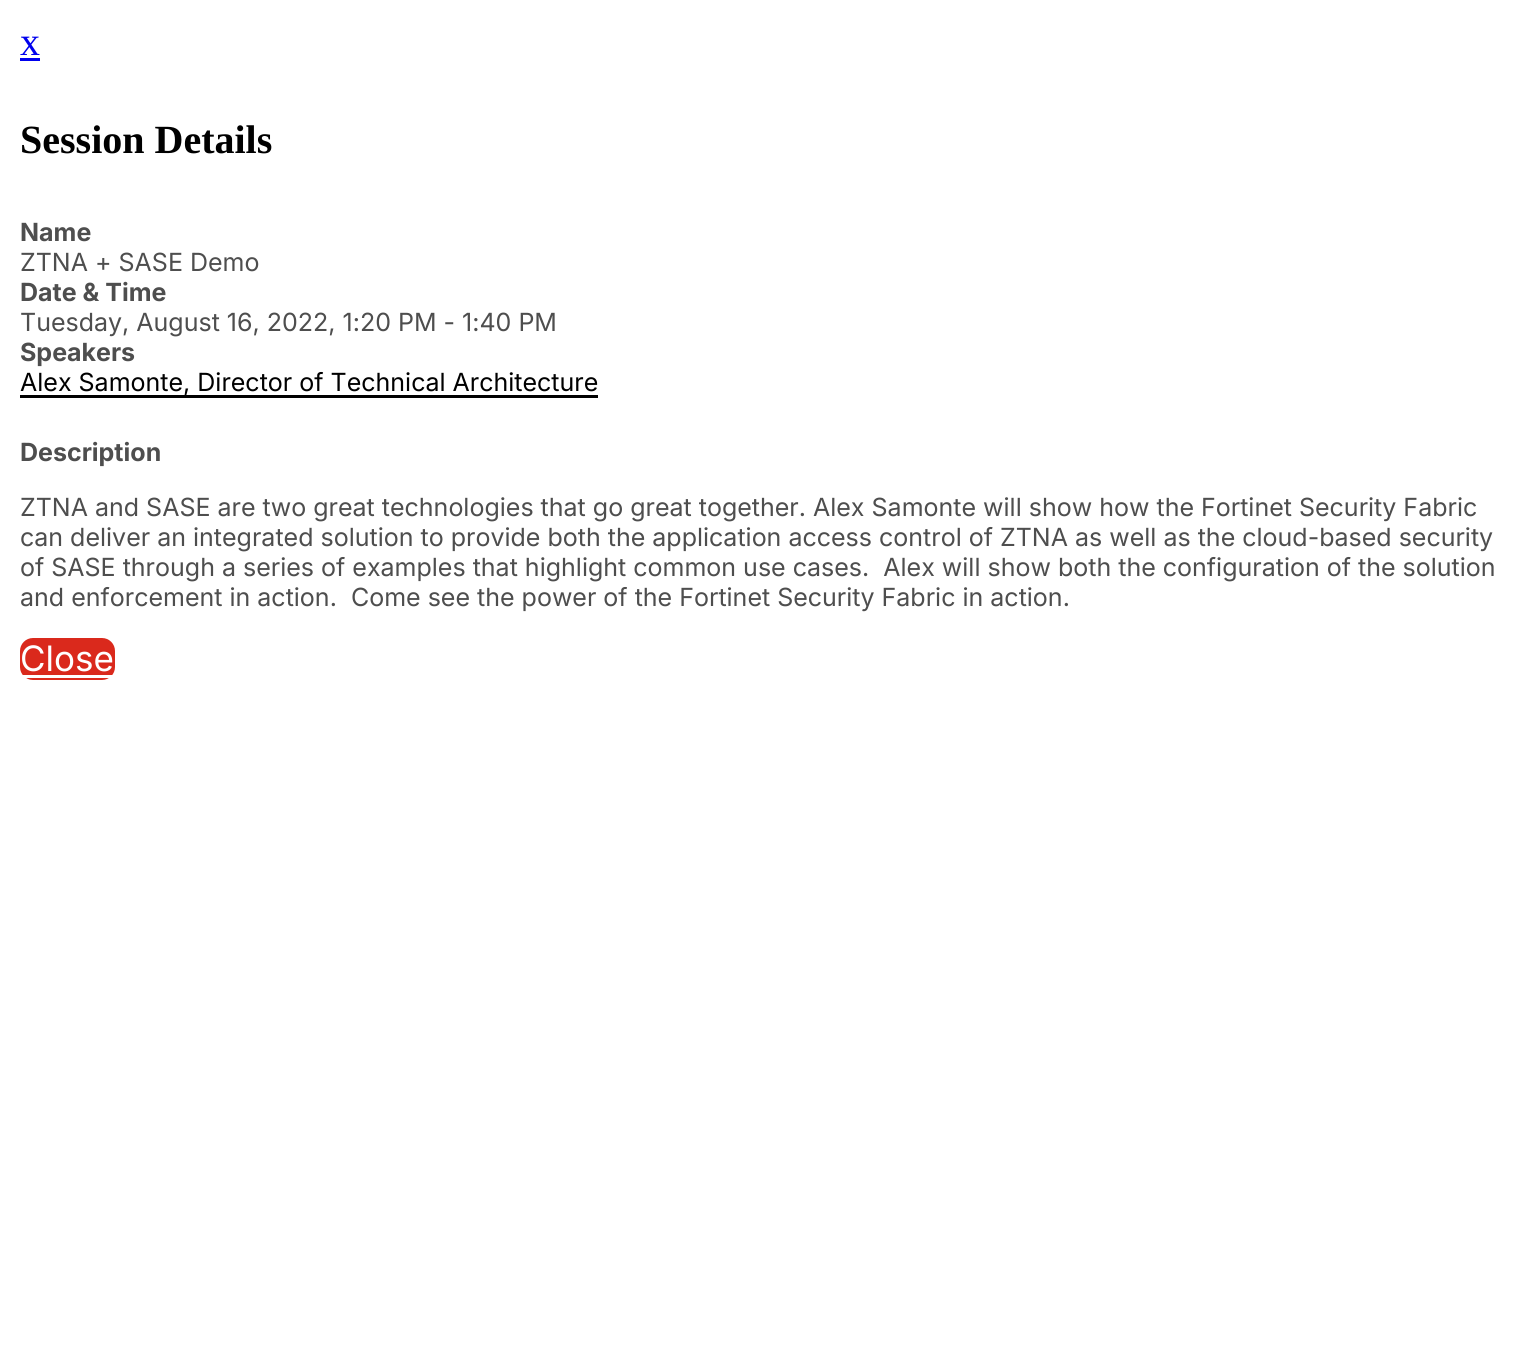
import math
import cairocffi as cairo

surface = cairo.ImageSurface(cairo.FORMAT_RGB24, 1522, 1362)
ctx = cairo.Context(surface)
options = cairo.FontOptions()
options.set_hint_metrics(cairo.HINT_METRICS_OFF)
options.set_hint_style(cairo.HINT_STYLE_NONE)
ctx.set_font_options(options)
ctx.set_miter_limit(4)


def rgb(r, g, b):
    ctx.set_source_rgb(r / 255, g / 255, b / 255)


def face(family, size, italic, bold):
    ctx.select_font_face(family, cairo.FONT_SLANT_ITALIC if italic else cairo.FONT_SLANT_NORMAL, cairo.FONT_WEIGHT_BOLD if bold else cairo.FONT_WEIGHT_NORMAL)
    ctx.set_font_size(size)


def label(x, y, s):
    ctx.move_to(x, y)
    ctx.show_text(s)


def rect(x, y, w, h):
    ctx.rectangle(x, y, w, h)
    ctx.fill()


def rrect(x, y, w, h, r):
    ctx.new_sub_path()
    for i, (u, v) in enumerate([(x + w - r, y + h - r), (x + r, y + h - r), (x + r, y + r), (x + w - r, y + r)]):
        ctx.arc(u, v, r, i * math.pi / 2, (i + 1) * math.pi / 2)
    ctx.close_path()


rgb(255, 255, 255)
ctx.paint()
face('Liberation Serif', 40, 0, 0)
rgb(0, 0, 238)
label(20, 55, 'x')
rect(20, 58, 20, 3)
face('Liberation Serif', 40, 0, 1)
rgb(0, 0, 0)
label(20, 153, 'Session Details')
face('Inter', 25, 0, 1)
rgb(78, 78, 78)
label(20, 241, 'Name')
face('Inter', 25, 0, 0)
label(20, 271, 'ZTNA + SASE Demo')
face('Inter', 25, 0, 1)
label(20, 301, 'Date & Time')
face('Inter', 25, 0, 0)
label(20, 331, 'Tuesday, August 16, 2022, 1:20 PM - 1:40 PM')
face('Inter', 25, 0, 1)
label(20, 361, 'Speakers')
rgb(0, 0, 0)
rect(20, 395, 578, 3)
face('Inter', 25, 0, 0)
label(20, 391, 'Alex Samonte, Director of Technical Architecture')
face('Inter', 25, 0, 1)
rgb(78, 78, 78)
label(20, 461, 'Description')
face('Inter', 25, 0, 0)
label(20, 516, 'ZTNA and SASE are two great technologies that go great together. Alex Samonte will show how the Fortinet Security Fabric')
label(20, 546, 'can deliver an integrated solution to provide both the application access control of ZTNA as well as the cloud-based security')
label(20, 576, 'of SASE through a series of examples that highlight common use cases.  Alex will show both the configuration of the solution')
label(20, 606, 'and enforcement in action.  Come see the power of the Fortinet Security Fabric in action.')
rgb(218, 41, 28)
rrect(20, 638, 95, 42, 13)
ctx.fill()
face('Inter', 35, 0, 0)
rgb(255, 255, 255)
label(20, 671, 'Close')
rect(20, 675, 95, 3)
surface.write_to_png('render.png')
